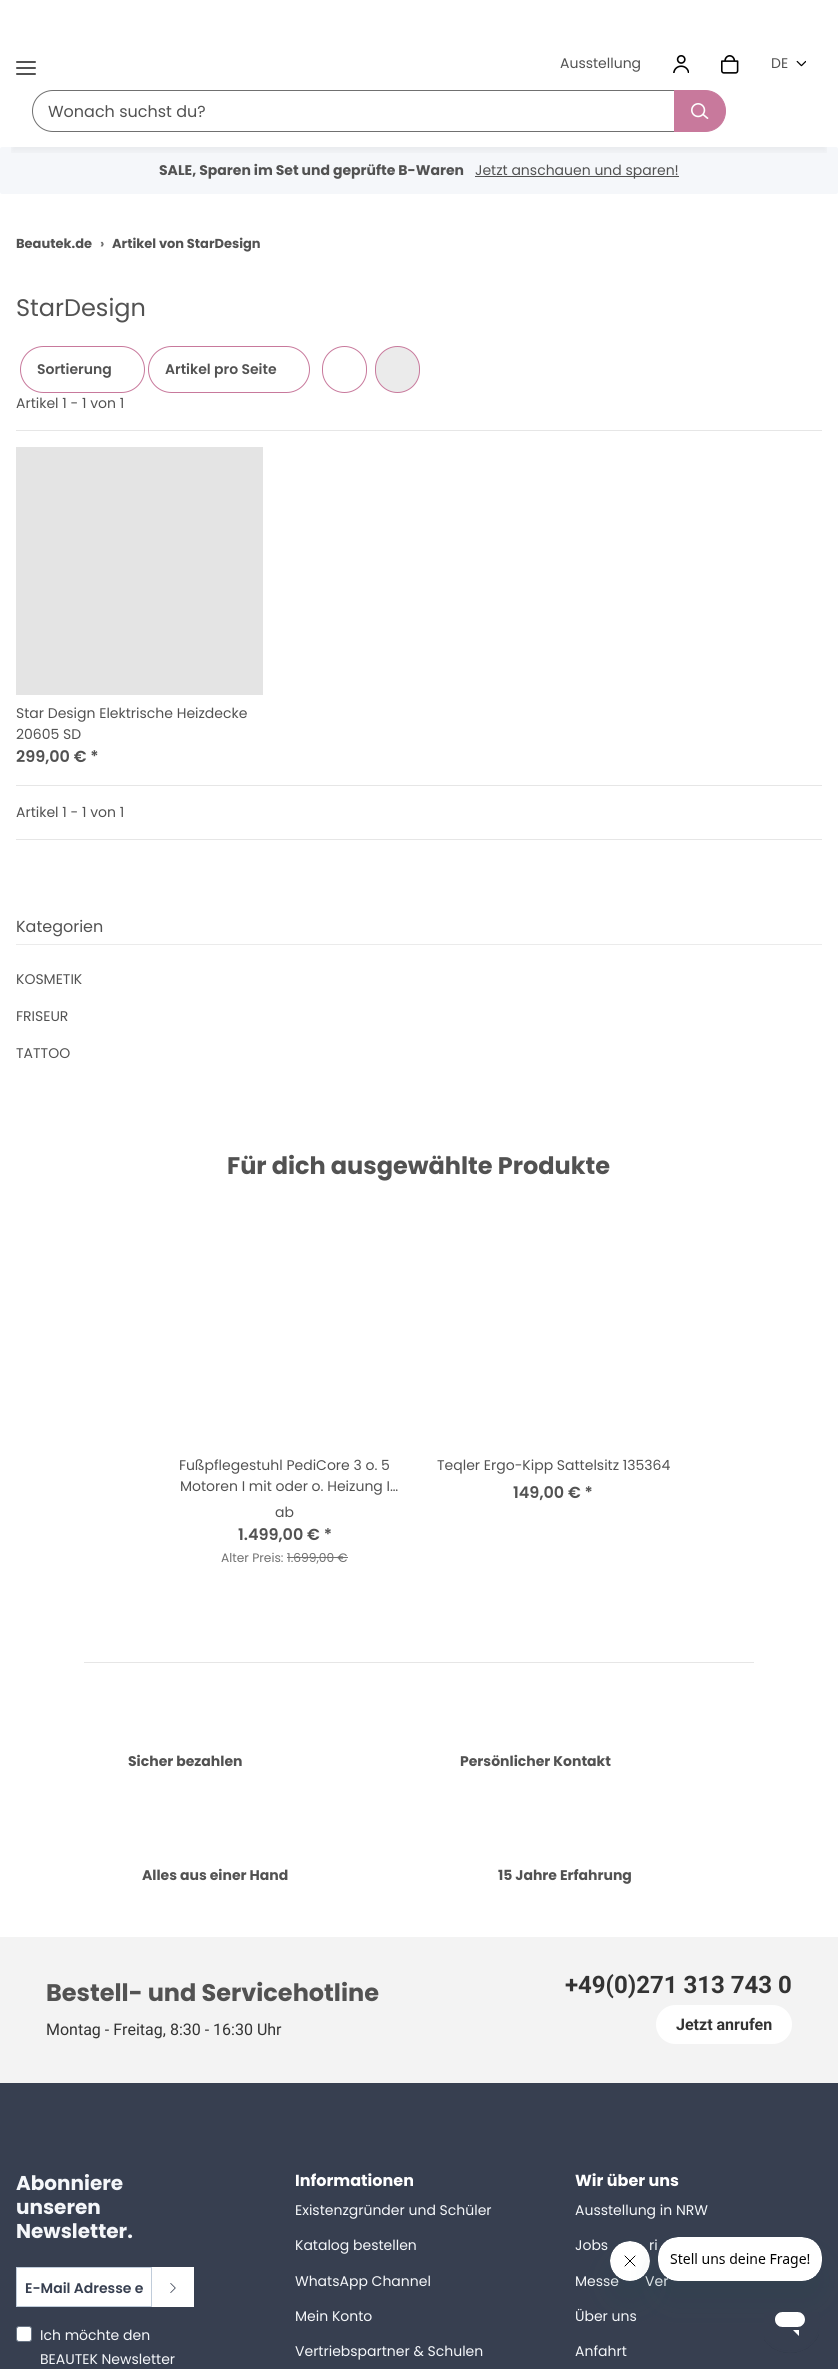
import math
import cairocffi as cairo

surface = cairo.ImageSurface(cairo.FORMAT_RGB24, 838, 2369)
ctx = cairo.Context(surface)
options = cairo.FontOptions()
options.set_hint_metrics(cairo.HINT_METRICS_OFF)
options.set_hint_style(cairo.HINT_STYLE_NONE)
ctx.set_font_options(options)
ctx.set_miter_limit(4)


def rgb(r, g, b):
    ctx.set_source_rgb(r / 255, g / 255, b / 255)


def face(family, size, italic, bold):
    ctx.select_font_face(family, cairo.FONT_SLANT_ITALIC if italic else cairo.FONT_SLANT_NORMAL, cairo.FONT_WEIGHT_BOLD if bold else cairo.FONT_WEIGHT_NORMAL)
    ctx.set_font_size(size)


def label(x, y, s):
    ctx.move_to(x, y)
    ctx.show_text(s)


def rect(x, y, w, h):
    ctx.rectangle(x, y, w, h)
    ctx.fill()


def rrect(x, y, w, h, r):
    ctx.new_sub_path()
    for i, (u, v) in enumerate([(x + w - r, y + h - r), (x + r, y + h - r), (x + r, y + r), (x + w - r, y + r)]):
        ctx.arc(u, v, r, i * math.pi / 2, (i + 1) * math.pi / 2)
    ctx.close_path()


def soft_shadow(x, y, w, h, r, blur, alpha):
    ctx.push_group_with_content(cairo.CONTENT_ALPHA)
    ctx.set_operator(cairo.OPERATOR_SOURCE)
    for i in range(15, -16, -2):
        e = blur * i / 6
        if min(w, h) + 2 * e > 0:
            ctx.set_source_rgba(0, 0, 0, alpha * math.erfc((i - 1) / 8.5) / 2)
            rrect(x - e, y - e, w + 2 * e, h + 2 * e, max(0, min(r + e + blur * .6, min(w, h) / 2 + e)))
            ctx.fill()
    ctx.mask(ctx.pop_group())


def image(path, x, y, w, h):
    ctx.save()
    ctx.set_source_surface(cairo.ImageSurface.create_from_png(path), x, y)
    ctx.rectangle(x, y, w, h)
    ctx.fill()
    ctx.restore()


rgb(255, 255, 255)
ctx.paint()
rgb(245, 247, 250)
rrect(0, 147, 838, 47, 2)
ctx.fill()
ctx.save()
ctx.rectangle(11, 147, 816, 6)
ctx.clip()
rgb(0, 0, 0)
soft_shadow(12, 65, 814, 86, 0, 4.5, 0.06)
ctx.restore()
rgb(82, 82, 82)
rrect(16, 67, 20, 2, 1)
ctx.fill()
rrect(16, 61, 20, 2, 1)
ctx.fill()
rrect(16, 73, 20, 2, 1)
ctx.fill()
face('Poppins', 14, 0, 0)
label(560, 68, 'Ausstellung')
image('image0.png', 673, 55, 16, 18)
image('image1.png', 721, 55, 18, 19)
label(771, 68, 'DE')
image('image2.png', 796, 60, 10, 7)
ctx.new_path()
ctx.move_to(53, 90.5)
ctx.line_to(674.5, 90.5)
ctx.line_to(674.5, 131.5)
ctx.line_to(53, 131.5)
ctx.curve_to(41.5, 131.5, 32.5, 122.5, 32.5, 111)
ctx.curve_to(32.5, 99.5, 41.5, 90.5, 53, 90.5)
ctx.close_path()
rgb(112, 112, 112)
ctx.set_line_width(1)
ctx.stroke()
face('Poppins', 16, 0, 0)
rgb(82, 82, 82)
label(48, 117, 'Wonach suchst du?')
rgb(200, 121, 156)
ctx.new_path()
ctx.move_to(674.5, 90.5)
ctx.line_to(705, 90.5)
ctx.curve_to(716.5, 90.5, 725.5, 99.5, 725.5, 111)
ctx.curve_to(725.5, 122.5, 716.5, 131.5, 705, 131.5)
ctx.line_to(674.5, 131.5)
ctx.close_path()
ctx.fill_preserve()
ctx.stroke()
image('image3.png', 691, 103, 18, 16)
face('Poppins', 14, 0, 1)
rgb(82, 82, 82)
label(159, 175, 'SALE, Sparen im Set und geprüfte B-Waren')
rect(475, 176, 204, 1)
face('Poppins', 14, 0, 0)
label(475, 175, 'Jetzt anschauen und sparen!')
face('Poppins', 13, 0, 1)
label(16, 248, 'Beautek.de')
rgb(112, 112, 112)
label(100, 248, '›')
rgb(82, 82, 82)
label(112, 248, 'Artikel von StarDesign')
face('Poppins', 24, 0, 0)
label(16, 316, 'StarDesign')
rrect(20.5, 346.5, 124, 46, 23)
rgb(200, 121, 156)
ctx.stroke()
face('Poppins SemiBold', 14, 0, 0)
rgb(82, 82, 82)
label(37, 374, 'Sortierung')
rrect(148.5, 346.5, 161, 46, 23)
rgb(200, 121, 156)
ctx.stroke()
rgb(82, 82, 82)
label(165, 374, 'Artikel pro Seite')
rrect(322.5, 346.5, 44, 46, 22)
rgb(200, 121, 156)
ctx.stroke()
rgb(235, 235, 235)
rrect(375.5, 346.5, 44, 46, 22)
ctx.fill_preserve()
rgb(200, 121, 156)
ctx.stroke()
face('Poppins', 14, 0, 0)
rgb(82, 82, 82)
label(16, 408, 'Artikel 1 - 1 von 1')
rgb(230, 230, 230)
rect(16, 430, 806, 1)
rgb(228, 228, 228)
rect(16, 447, 247, 248)
rgb(82, 82, 82)
label(16, 718, 'Star Design Elektrische Heizdecke')
label(16, 739, '20605 SD')
face('Poppins SemiBold', 16, 0, 0)
label(16, 762, '299,00 € *')
rgb(230, 230, 230)
rect(16, 785, 806, 1)
face('Poppins', 14, 0, 0)
rgb(82, 82, 82)
label(16, 817, 'Artikel 1 - 1 von 1')
rgb(230, 230, 230)
rect(16, 839, 806, 1)
rgb(235, 235, 235)
rect(16, 944, 806, 1)
face('Poppins', 16, 0, 0)
rgb(82, 82, 82)
label(16, 932, 'Kategorien')
face('Poppins', 14, 0, 0)
label(16, 984, 'KOSMETIK')
label(16, 1021, 'FRISEUR')
label(16, 1058, 'TATTOO')
face('Poppins', 24, 0, 1)
label(227, 1174, 'Für dich ausgewählte Produkte')
face('Poppins', 14, 0, 0)
label(179, 1470, 'Fußpflegestuhl PediCore 3 o. 5')
label(180, 1491, 'Motoren I mit oder o. Heizung I…')
label(275, 1517, 'ab')
face('Poppins SemiBold', 16, 0, 0)
label(238, 1540, '1.499,00 € *')
face('Poppins', 12.25, 0, 0)
rgb(112, 112, 112)
label(221, 1562, 'Alter Preis: 1.699,00 €')
rect(287, 1557, 61, 1)
face('Poppins', 14, 0, 0)
rgb(82, 82, 82)
label(437, 1470, 'Teqler Ergo-Kipp Sattelsitz 135364')
face('Poppins SemiBold', 16, 0, 0)
label(513, 1498, '149,00 € *')
rgb(230, 230, 230)
rect(84, 1662, 670, 1)
face('Poppins', 14, 0, 1)
rgb(82, 82, 82)
label(128, 1766, 'Sicher bezahlen')
label(460, 1766, 'Persönlicher Kontakt')
label(142, 1880, 'Alles aus einer Hand')
label(498, 1880, '15 Jahre Erfahrung')
rgb(243, 243, 243)
rect(0, 1937, 838, 146)
face('Poppins', 24, 0, 1)
rgb(82, 82, 82)
label(46, 2001, 'Bestell- und Servicehotline')
face('Roboto', 16, 0, 0)
rgb(51, 51, 51)
label(46, 2035, 'Montag - Freitag, 8:30 - 16:30 Uhr')
face('Roboto', 24, 0, 1)
label(565, 1993, '+49(0)271 313 743 0')
rgb(255, 255, 255)
rrect(656, 2005, 136, 39, 19.5)
ctx.fill()
face('Roboto', 16, 0, 1)
rgb(51, 51, 51)
label(676, 2030, 'Jetzt anrufen')
rgb(55, 63, 80)
rect(0, 2083, 838, 286)
face('Poppins', 20, 0, 1)
rgb(245, 247, 250)
label(16, 2190, 'Abonniere')
label(16, 2214, 'unseren')
label(16, 2238, 'Newsletter.')
rgb(255, 255, 255)
ctx.rectangle(16.5, 2267.5, 135, 39)
ctx.fill_preserve()
rgb(192, 204, 218)
ctx.stroke()
face('Poppins SemiBold', 14, 0, 0)
rgb(55, 63, 80)
label(25, 2293, 'E-Mail Adresse e')
rgb(255, 255, 255)
rect(152, 2267, 42, 40)
image('image4.png', 170, 2283, 6, 10)
rrect(16.5, 2326.5, 15, 15, 2.5)
ctx.fill_preserve()
rgb(104, 116, 132)
ctx.stroke()
face('Poppins', 14, 0, 0)
rgb(245, 247, 250)
label(40, 2340, 'Ich möchte den')
label(40, 2364, 'BEAUTEK Newsletter')
face('Poppins', 16, 0, 1)
rgb(255, 255, 255)
label(295, 2186, 'Informationen')
face('Poppins', 14, 0, 0)
rgb(245, 247, 250)
label(295, 2215, 'Existenzgründer und Schüler')
label(295, 2250, 'Katalog bestellen')
label(295, 2286, 'WhatsApp Channel')
label(295, 2321, 'Mein Konto')
label(295, 2356, 'Vertriebspartner & Schulen')
face('Poppins', 16, 0, 1)
rgb(255, 255, 255)
label(575, 2186, 'Wir über uns')
face('Poppins', 14, 0, 0)
rgb(245, 247, 250)
label(575, 2215, 'Ausstellung in NRW')
label(575, 2250, 'Jobs')
label(649, 2250, 'ri')
label(575, 2286, 'Messe')
label(645, 2286, 'Ver')
label(575, 2321, 'Über uns')
label(575, 2356, 'Anfahrt')
rgb(23, 73, 77)
soft_shadow(610, 2261, 40, 40, 20, 15, 0.15)
image('image6.png', 610, 2241, 40, 40)
soft_shadow(658, 2257, 164, 44, 20, 15, 0.15)
image('image5.png', 658, 2237, 164, 44)
image('image7.png', 764, 2312, 55, 41)
surface.write_to_png('render.png')
